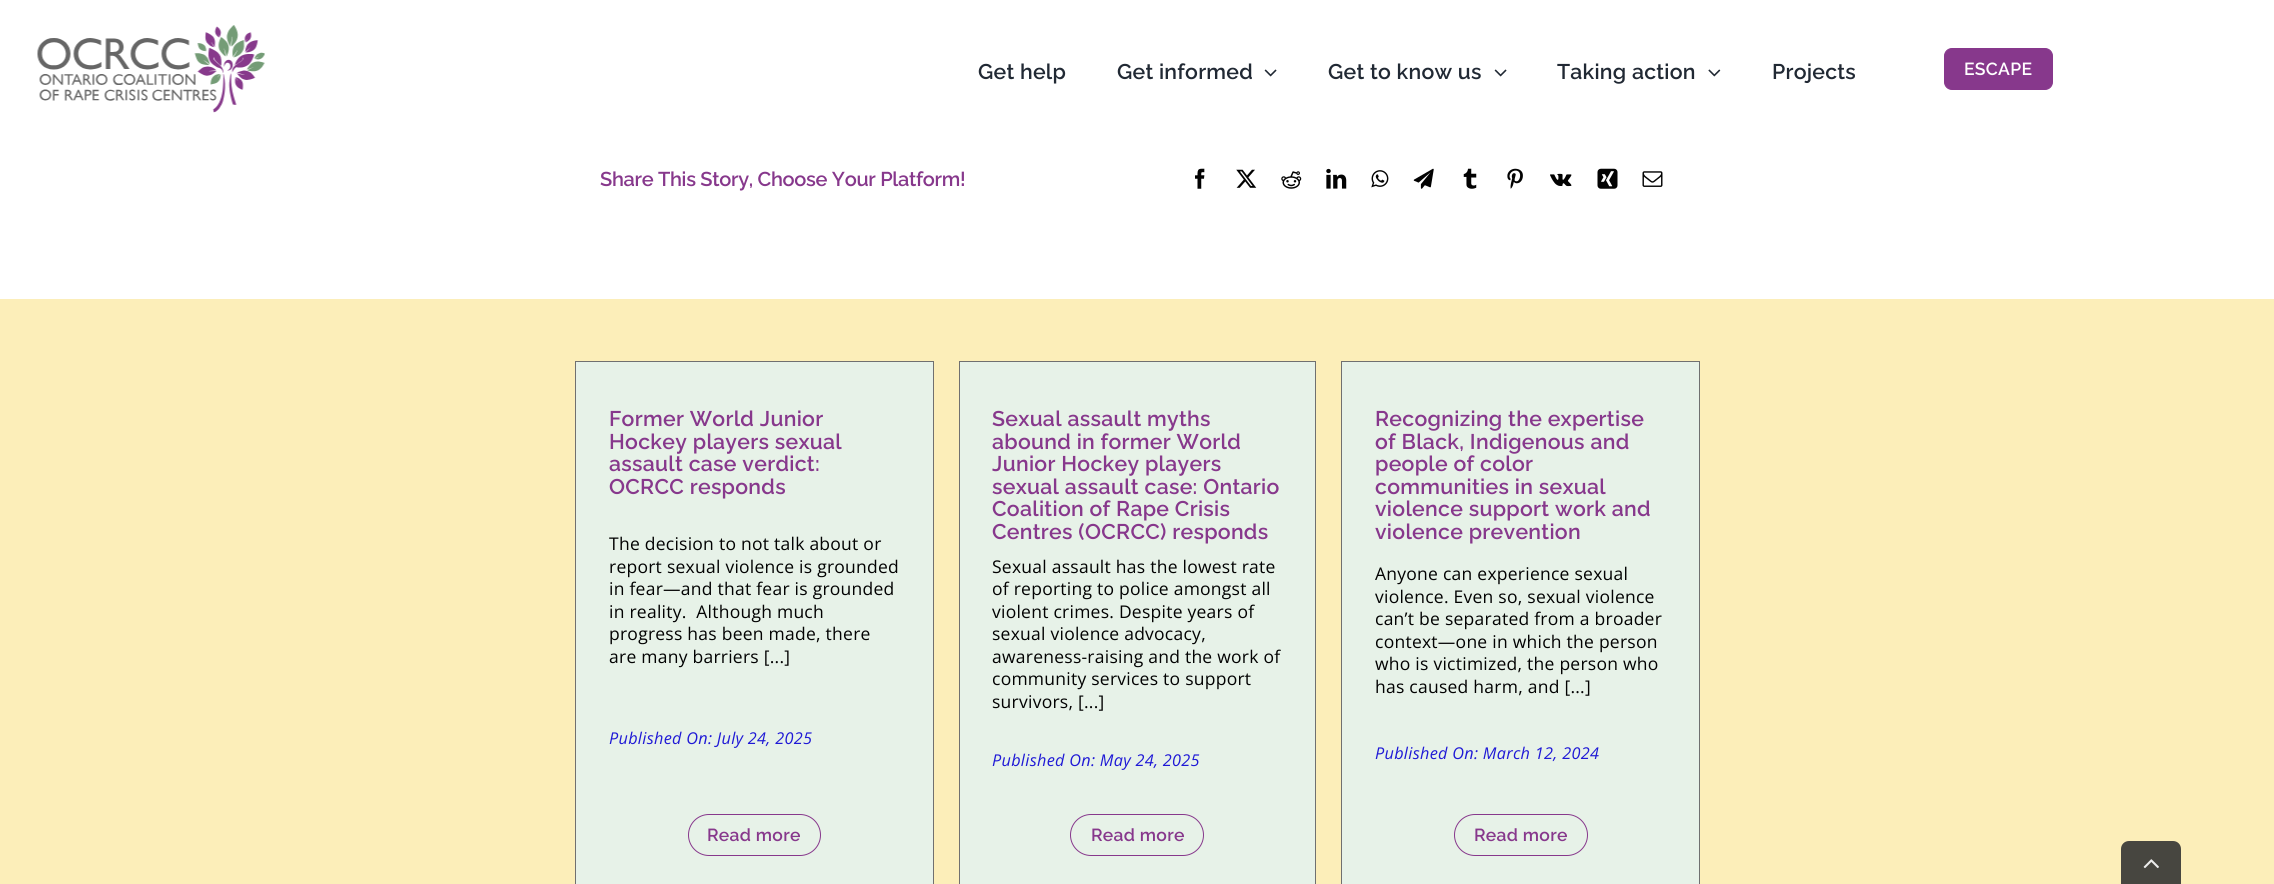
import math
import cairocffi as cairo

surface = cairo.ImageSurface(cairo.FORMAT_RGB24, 2274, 884)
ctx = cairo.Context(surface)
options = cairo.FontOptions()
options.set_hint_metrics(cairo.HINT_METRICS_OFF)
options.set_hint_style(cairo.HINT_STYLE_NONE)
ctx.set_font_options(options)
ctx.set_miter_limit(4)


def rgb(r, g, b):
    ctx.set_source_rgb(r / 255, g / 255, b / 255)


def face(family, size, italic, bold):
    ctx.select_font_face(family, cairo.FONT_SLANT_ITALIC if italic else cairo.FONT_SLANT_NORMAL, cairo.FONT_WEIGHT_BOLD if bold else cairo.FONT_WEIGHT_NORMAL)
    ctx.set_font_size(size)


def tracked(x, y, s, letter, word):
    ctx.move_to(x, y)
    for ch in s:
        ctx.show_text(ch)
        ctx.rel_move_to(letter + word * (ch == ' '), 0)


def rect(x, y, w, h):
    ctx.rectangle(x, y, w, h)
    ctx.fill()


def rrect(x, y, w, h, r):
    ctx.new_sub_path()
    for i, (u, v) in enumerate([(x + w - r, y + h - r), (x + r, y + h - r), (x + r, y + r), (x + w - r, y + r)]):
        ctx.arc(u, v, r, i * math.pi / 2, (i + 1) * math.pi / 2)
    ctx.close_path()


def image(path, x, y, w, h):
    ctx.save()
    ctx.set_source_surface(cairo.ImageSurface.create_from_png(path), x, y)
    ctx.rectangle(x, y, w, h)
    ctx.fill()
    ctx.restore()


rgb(255, 255, 255)
ctx.paint()
image('image0.png', 37, 25, 228, 88)
face('Raleway SemiBold', 21.25, 0, 0)
rgb(33, 41, 52)
tracked(978, 79, 'Get help', 0.25, 0)
tracked(1117, 79, 'Get informed', 0.25, 0)
image('image1.png', 1264, 69, 13, 8)
tracked(1328, 79, 'Get to know us', 0.25, 0)
image('image1.png', 1494, 69, 13, 8)
tracked(1557, 79, 'Taking action', 0.25, 0)
image('image2.png', 1708, 69, 13, 8)
tracked(1772, 79, 'Projects', 0.25, 0)
rgb(135, 56, 140)
rrect(1944.5, 48.5, 108, 41, 7.5)
ctx.fill_preserve()
ctx.set_line_width(1)
ctx.stroke()
face('Raleway SemiBold', 17.5, 0, 0)
rgb(255, 255, 255)
tracked(1964, 75, 'ESCAPE', 0.3, 0)
face('Raleway SemiBold', 20, 0, 0)
rgb(135, 56, 140)
tracked(600, 186, 'Share This Story, Choose Your Platform!', -0.3, 0)
image('image3.png', 1195, 168, 10, 21)
image('image4.png', 1236, 169, 21, 19)
image('image5.png', 1281, 171, 21, 18)
image('image6.png', 1326, 168, 21, 21)
image('image7.png', 1371, 170, 18, 18)
image('image8.png', 1413, 168, 21, 21)
image('image9.png', 1463, 168, 14, 21)
image('image10.png', 1507, 168, 16, 21)
image('image11.png', 1550, 173, 22, 14)
image('image12.png', 1597, 168, 21, 21)
image('image13.png', 1642, 171, 21, 16)
rgb(252, 238, 185)
rect(0, 299, 2274, 585)
rgb(231, 242, 232)
ctx.rectangle(575.5, 361.5, 358, 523)
ctx.fill_preserve()
rgb(112, 112, 112)
ctx.stroke()
face('Raleway SemiBold', 21.25, 0, 0)
rgb(135, 56, 140)
tracked(609, 426, 'Former World Junior', 0.3, 0)
tracked(609, 449, 'Hockey players sexual', 0.3, 0)
tracked(609, 471, 'assault case verdict:', 0.3, 0)
tracked(609, 494, 'OCRCC responds', 0.3, 0)
face('Open Sans', 17.5, 0, 0)
rgb(2, 2, 2)
tracked(609, 550, 'The decision to not talk about or', 0.25, 0)
tracked(609, 573, 'report sexual violence is grounded', 0.25, 0)
tracked(609, 595, 'in fear—and that fear is grounded', 0.25, 0)
tracked(609, 618, 'in reality.  Although much', 0.25, 0)
tracked(609, 640, 'progress has been made, there', 0.25, 0)
tracked(609, 663, 'are many barriers [...]', 0.25, 0)
face('Open Sans', 16.25, 1, 0)
rgb(31, 25, 214)
tracked(609, 744, 'Published On: July 24, 2025', 0.3, 0)
rrect(688.5, 814.5, 132, 41, 20.5)
rgb(135, 56, 140)
ctx.stroke()
face('Raleway SemiBold', 17.5, 0, 0)
tracked(707, 841, 'Read more', 0.3, 0)
rgb(231, 242, 232)
ctx.rectangle(959.5, 361.5, 356, 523)
ctx.fill_preserve()
rgb(112, 112, 112)
ctx.stroke()
face('Raleway SemiBold', 21.25, 0, 0)
rgb(135, 56, 140)
tracked(992, 426, 'Sexual assault myths', 0.3, 0)
tracked(992, 449, 'abound in former World', 0.3, 0)
tracked(992, 471, 'Junior Hockey players', 0.3, 0)
tracked(992, 494, 'sexual assault case: Ontario', 0.3, 0)
tracked(992, 516, 'Coalition of Rape Crisis', 0.3, 0)
tracked(992, 539, 'Centres (OCRCC) responds', 0.3, 0)
face('Open Sans', 17.5, 0, 0)
rgb(2, 2, 2)
tracked(992, 573, 'Sexual assault has the lowest rate', 0.25, 0)
tracked(992, 595, 'of reporting to police amongst all', 0.25, 0)
tracked(992, 618, 'violent crimes. Despite years of', 0.25, 0)
tracked(992, 640, 'sexual violence advocacy,', 0.25, 0)
tracked(992, 663, 'awareness-raising and the work of', 0.25, 0)
tracked(992, 685, 'community services to support', 0.25, 0)
tracked(992, 708, 'survivors, [...]', 0.25, 0)
face('Open Sans', 16.25, 1, 0)
rgb(31, 25, 214)
tracked(992, 766, 'Published On: May 24, 2025', 0.3, 0)
rrect(1070.5, 814.5, 133, 41, 20.5)
rgb(135, 56, 140)
ctx.stroke()
face('Raleway SemiBold', 17.5, 0, 0)
tracked(1091, 841, 'Read more', 0.3, 0)
rgb(231, 242, 232)
ctx.rectangle(1341.5, 361.5, 358, 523)
ctx.fill_preserve()
rgb(112, 112, 112)
ctx.stroke()
face('Raleway SemiBold', 21.25, 0, 0)
rgb(135, 56, 140)
tracked(1375, 426, 'Recognizing the expertise', 0.3, 0)
tracked(1375, 449, 'of Black, Indigenous and', 0.3, 0)
tracked(1375, 471, 'people of color', 0.3, 0)
tracked(1375, 494, 'communities in sexual', 0.3, 0)
tracked(1375, 516, 'violence support work and', 0.3, 0)
tracked(1375, 539, 'violence prevention', 0.3, 0)
face('Open Sans', 17.5, 0, 0)
rgb(2, 2, 2)
tracked(1375, 580, 'Anyone can experience sexual', 0.25, 0)
tracked(1375, 603, 'violence. Even so, sexual violence', 0.25, 0)
tracked(1375, 625, 'can’t be separated from a broader', 0.25, 0)
tracked(1375, 648, 'context—one in which the person', 0.25, 0)
tracked(1375, 670, 'who is victimized, the person who', 0.25, 0)
tracked(1375, 693, 'has caused harm, and [...]', 0.25, 0)
face('Open Sans', 16.25, 1, 0)
rgb(31, 25, 214)
tracked(1375, 759, 'Published On: March 12, 2024', 0.3, 0)
rrect(1454.5, 814.5, 133, 41, 20.5)
rgb(135, 56, 140)
ctx.stroke()
face('Raleway SemiBold', 17.5, 0, 0)
tracked(1474, 841, 'Read more', 0.3, 0)
rgb(71, 70, 64)
ctx.new_path()
ctx.move_to(2129, 841)
ctx.line_to(2173, 841)
ctx.curve_to(2177.5, 841, 2181, 844.5, 2181, 849)
ctx.line_to(2181, 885)
ctx.line_to(2121, 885)
ctx.line_to(2121, 849)
ctx.curve_to(2121, 844.5, 2124.5, 841, 2129, 841)
ctx.close_path()
ctx.fill()
image('image14.png', 2143, 859, 16, 10)
surface.write_to_png('render.png')
